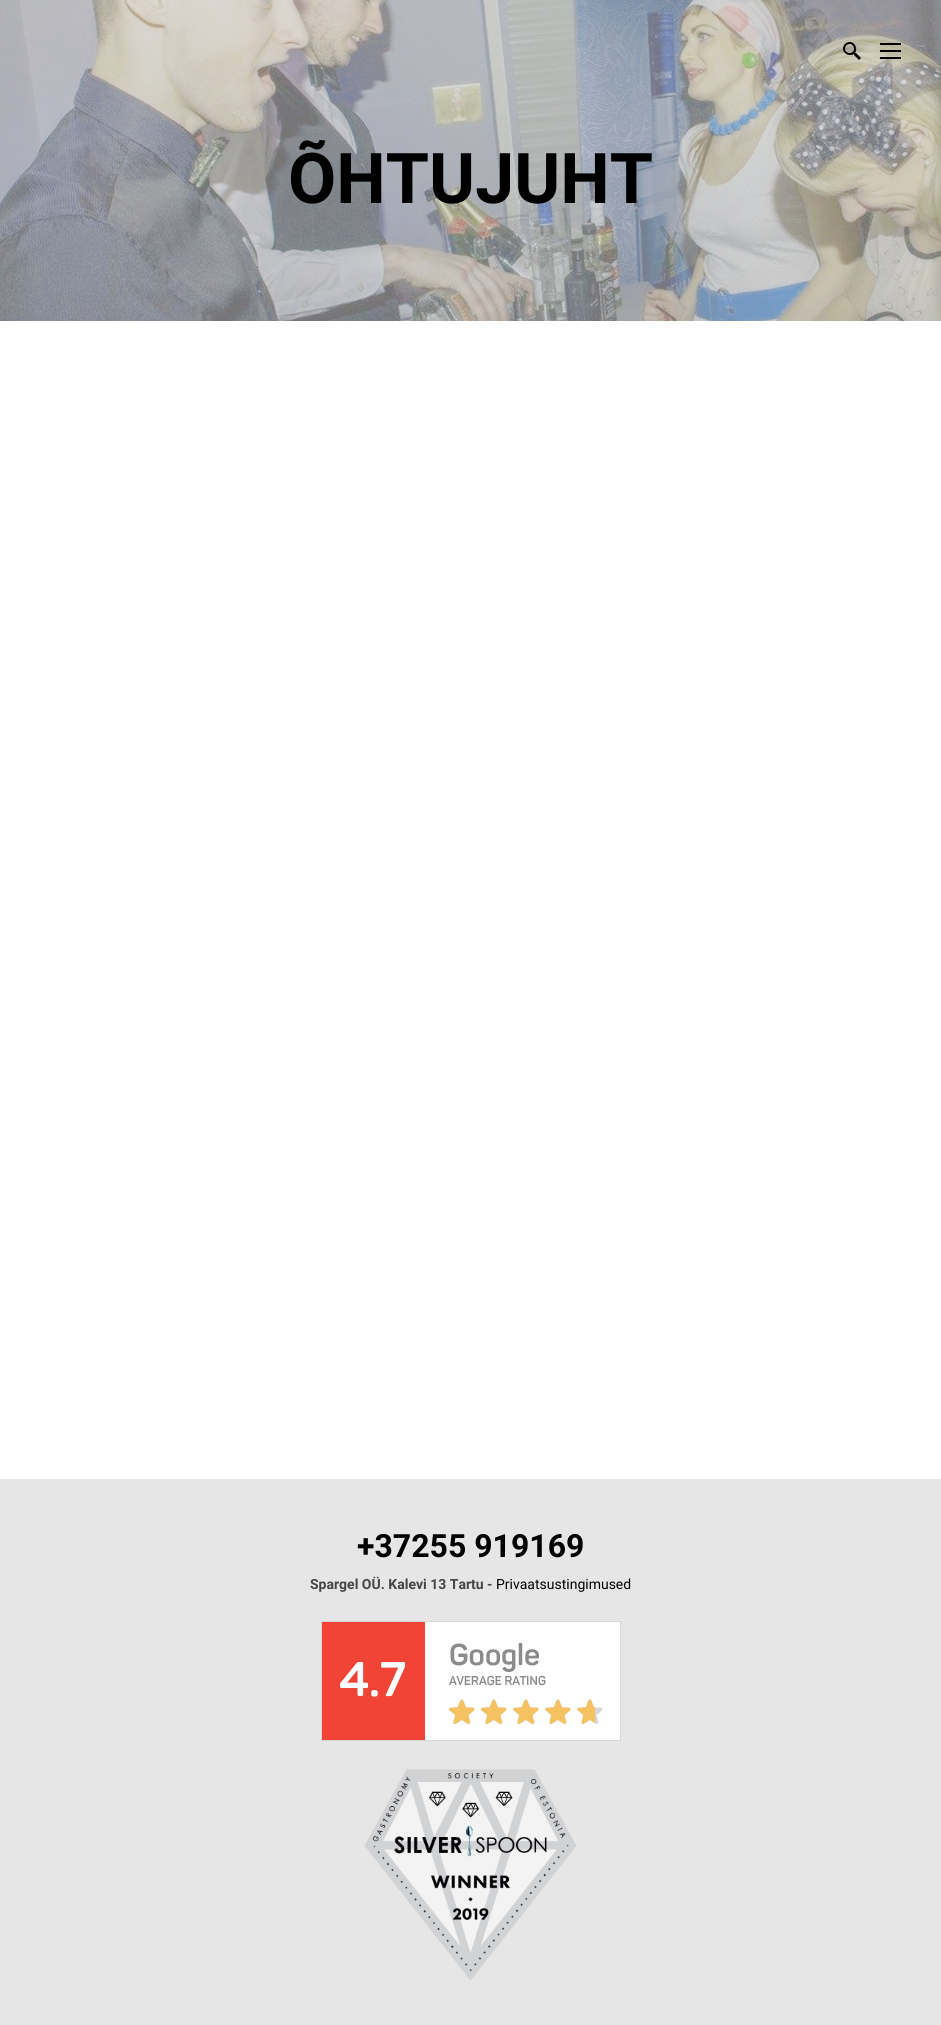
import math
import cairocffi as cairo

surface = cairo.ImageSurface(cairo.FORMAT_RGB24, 941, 2025)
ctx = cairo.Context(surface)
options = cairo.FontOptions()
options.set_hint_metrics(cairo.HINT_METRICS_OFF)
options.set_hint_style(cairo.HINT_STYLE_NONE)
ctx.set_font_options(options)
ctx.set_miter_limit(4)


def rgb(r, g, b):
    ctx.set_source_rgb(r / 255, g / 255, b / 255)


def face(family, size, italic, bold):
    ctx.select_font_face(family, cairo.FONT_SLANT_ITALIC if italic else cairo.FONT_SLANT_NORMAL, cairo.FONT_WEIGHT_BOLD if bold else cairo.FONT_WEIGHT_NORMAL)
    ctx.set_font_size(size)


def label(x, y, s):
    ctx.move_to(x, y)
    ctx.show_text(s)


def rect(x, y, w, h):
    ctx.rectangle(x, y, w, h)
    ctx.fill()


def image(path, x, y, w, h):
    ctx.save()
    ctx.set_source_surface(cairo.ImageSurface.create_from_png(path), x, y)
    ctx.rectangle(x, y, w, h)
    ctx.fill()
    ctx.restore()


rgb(255, 255, 255)
ctx.paint()
image('image0.png', 0, 0, 941, 321)
image('image1.png', 843, 42, 18, 18)
rgb(0, 0, 0)
rect(880, 43, 21, 2)
rect(880, 50, 21, 2)
rect(880, 57, 21, 2)
face('Roboto', 70, 0, 1)
label(288, 203, 'ÕHTUJUHT')
rgb(230, 230, 230)
rect(0, 1479, 941, 546)
face('Roboto', 32, 0, 1)
rgb(0, 0, 0)
label(357, 1557, '+37255 919169')
face('Roboto', 14, 0, 1)
rgb(69, 69, 69)
label(310, 1589, 'Spargel OÜ. Kalevi 13 Tartu -')
face('Roboto', 14, 0, 0)
rgb(0, 0, 0)
label(496, 1589, 'Privaatsustingimused')
image('image2.png', 321, 1621, 300, 120)
image('image3.png', 364, 1769, 213, 212)
surface.write_to_png('render.png')
